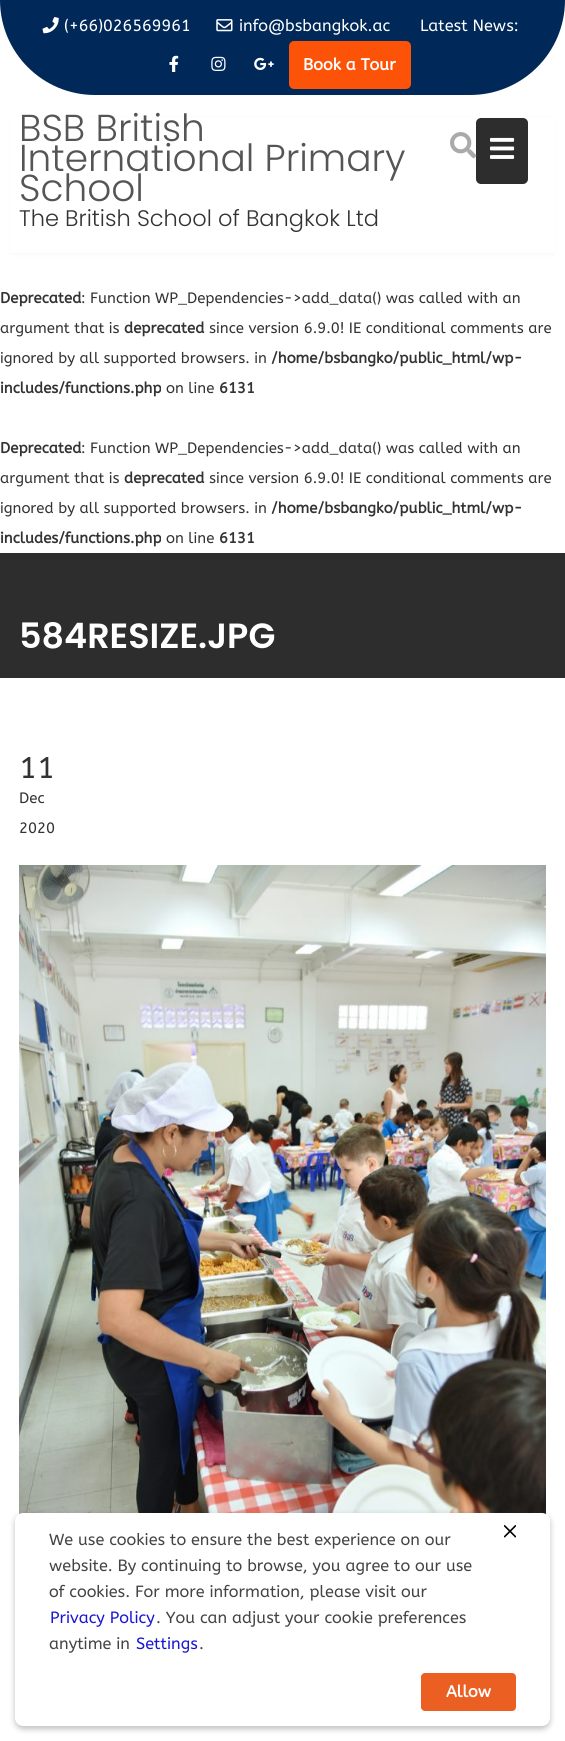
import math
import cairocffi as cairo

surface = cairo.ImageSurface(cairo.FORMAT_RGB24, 565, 1741)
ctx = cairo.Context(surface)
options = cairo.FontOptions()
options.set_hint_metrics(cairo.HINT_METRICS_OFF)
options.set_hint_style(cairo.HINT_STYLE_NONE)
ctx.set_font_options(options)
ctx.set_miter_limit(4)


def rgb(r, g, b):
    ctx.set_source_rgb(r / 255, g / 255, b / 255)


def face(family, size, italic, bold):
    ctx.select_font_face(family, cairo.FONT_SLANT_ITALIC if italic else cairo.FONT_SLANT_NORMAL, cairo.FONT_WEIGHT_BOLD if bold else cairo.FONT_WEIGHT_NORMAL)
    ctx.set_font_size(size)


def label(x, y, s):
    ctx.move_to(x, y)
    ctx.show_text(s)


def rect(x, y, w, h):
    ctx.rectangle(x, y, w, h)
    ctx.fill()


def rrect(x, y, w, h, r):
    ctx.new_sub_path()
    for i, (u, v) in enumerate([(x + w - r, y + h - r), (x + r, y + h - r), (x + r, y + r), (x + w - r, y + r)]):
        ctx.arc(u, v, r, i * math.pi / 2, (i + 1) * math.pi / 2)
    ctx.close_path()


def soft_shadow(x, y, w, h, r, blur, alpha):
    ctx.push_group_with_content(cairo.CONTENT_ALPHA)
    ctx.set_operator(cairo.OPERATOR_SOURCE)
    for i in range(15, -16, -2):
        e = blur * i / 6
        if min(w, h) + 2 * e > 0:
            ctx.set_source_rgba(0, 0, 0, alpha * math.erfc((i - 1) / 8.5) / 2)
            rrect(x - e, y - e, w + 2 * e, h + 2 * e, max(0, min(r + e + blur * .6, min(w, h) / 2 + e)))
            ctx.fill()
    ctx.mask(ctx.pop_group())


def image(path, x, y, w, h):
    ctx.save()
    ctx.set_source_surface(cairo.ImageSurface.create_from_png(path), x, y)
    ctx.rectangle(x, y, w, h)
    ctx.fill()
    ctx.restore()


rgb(255, 255, 255)
ctx.paint()
rgb(0, 40, 88)
ctx.new_path()
ctx.move_to(0, 0)
ctx.line_to(565, 0)
ctx.curve_to(565, 52.5, 522.5, 95, 470, 95)
ctx.line_to(95, 95)
ctx.curve_to(42.5, 95, 0, 52.5, 0, 0)
ctx.close_path()
ctx.fill()
image('image0.png', 42, 17, 17, 17)
face('ABeeZee', 16.25, 0, 0)
rgb(255, 255, 255)
label(64, 31, '(+66)026569961')
image('image1.png', 216, 19, 17, 13)
label(239, 31, 'info@bsbangkok.ac')
label(420, 31, 'Latest News:')
image('image2.png', 169, 55, 10, 17)
image('image3.png', 211, 56, 15, 15)
image('image4.png', 254, 57, 20, 13)
rgb(253, 83, 8)
rrect(290.5, 42.5, 119, 45, 3.5)
ctx.fill_preserve()
ctx.set_line_width(3)
ctx.stroke()
face('ABeeZee', 16.25, 0, 1)
rgb(255, 255, 255)
label(303, 70, 'Book a Tour')
rgb(238, 238, 238)
soft_shadow(13, 120, 540, 133, 0, 2.5, 0.9)
rgb(255, 255, 255)
rect(11, 118, 544, 135)
face('Poppins Light', 37.5, 0, 0)
rgb(85, 85, 85)
label(19, 141, 'BSB British')
label(19, 171, 'International Primary')
label(19, 201, 'School')
face('Poppins Light', 22.5, 0, 0)
rgb(51, 51, 51)
label(19, 226, 'The British School of Bangkok Ltd')
rgb(45, 45, 45)
rrect(476, 118, 52, 66, 5)
ctx.fill()
image('image5.png', 450, 132, 27, 27)
image('image6.png', 490, 137, 25, 22)
rect(0, 553, 565, 125)
face('Poppins SemiBold', 35, 0, 0)
rgb(255, 255, 255)
label(19, 648, '584RESIZE.JPG')
face('ABeeZee', 30, 0, 0)
rgb(51, 51, 51)
label(19, 778, '11')
face('ABeeZee', 15, 0, 0)
label(19, 803, 'Dec')
label(19, 833, '2020')
image('image7.png', 19, 865, 527, 650)
rrect(19.5, 1678.5, 249, 47, 2)
rgb(229, 229, 229)
ctx.set_line_width(1)
ctx.stroke()
face('ABeeZee', 15, 0, 1)
rgb(51, 51, 51)
label(0, 303, 'Deprecated')
face('ABeeZee', 15, 0, 0)
label(81, 303, ': Function WP_Dependencies->add_data() was called with an')
label(0, 333, 'argument that is')
face('ABeeZee', 15, 0, 1)
label(124, 333, 'deprecated')
face('ABeeZee', 15, 0, 0)
label(209, 333, 'since version 6.9.0! IE conditional comments are')
label(0, 363, 'ignored by all supported browsers. in')
face('ABeeZee', 15, 0, 1)
label(271, 363, '/home/bsbangko/public_html/wp-')
label(0, 393, 'includes/functions.php')
face('ABeeZee', 15, 0, 0)
label(166, 393, 'on line')
face('ABeeZee', 15, 0, 1)
label(219, 393, '6131')
label(0, 453, 'Deprecated')
face('ABeeZee', 15, 0, 0)
label(81, 453, ': Function WP_Dependencies->add_data() was called with an')
label(0, 483, 'argument that is')
face('ABeeZee', 15, 0, 1)
label(124, 483, 'deprecated')
face('ABeeZee', 15, 0, 0)
label(209, 483, 'since version 6.9.0! IE conditional comments are')
label(0, 513, 'ignored by all supported browsers. in')
face('ABeeZee', 15, 0, 1)
label(271, 513, '/home/bsbangko/public_html/wp-')
label(0, 543, 'includes/functions.php')
face('ABeeZee', 15, 0, 0)
label(166, 543, 'on line')
face('ABeeZee', 15, 0, 1)
label(219, 543, '6131')
rgb(0, 0, 0)
soft_shadow(15, 1515, 535, 214, 8, 3, 0.25)
rgb(255, 255, 255)
rrect(15, 1513, 535, 213, 8)
ctx.fill()
image('image8.png', 504, 1525, 12, 13)
face('ABeeZee', 16.25, 0, 0)
rgb(68, 68, 68)
label(49, 1545, 'We use cookies to ensure the best experience on our')
label(49, 1571, 'website. By continuing to browse, you agree to our use')
label(49, 1597, 'of cookies. For more information, please visit our')
rgb(25, 22, 212)
label(50, 1623, 'Privacy Policy')
rgb(68, 68, 68)
label(156, 1623, '. You can adjust your cookie preferences')
label(49, 1649, 'anytime in')
rgb(25, 22, 212)
label(136, 1649, 'Settings')
rgb(68, 68, 68)
label(199, 1649, '.')
rgb(236, 95, 34)
rrect(421, 1673, 95, 38, 4)
ctx.fill()
face('ABeeZee', 16.25, 0, 1)
rgb(255, 255, 255)
label(446, 1697, 'Allow')
surface.write_to_png('render.png')
